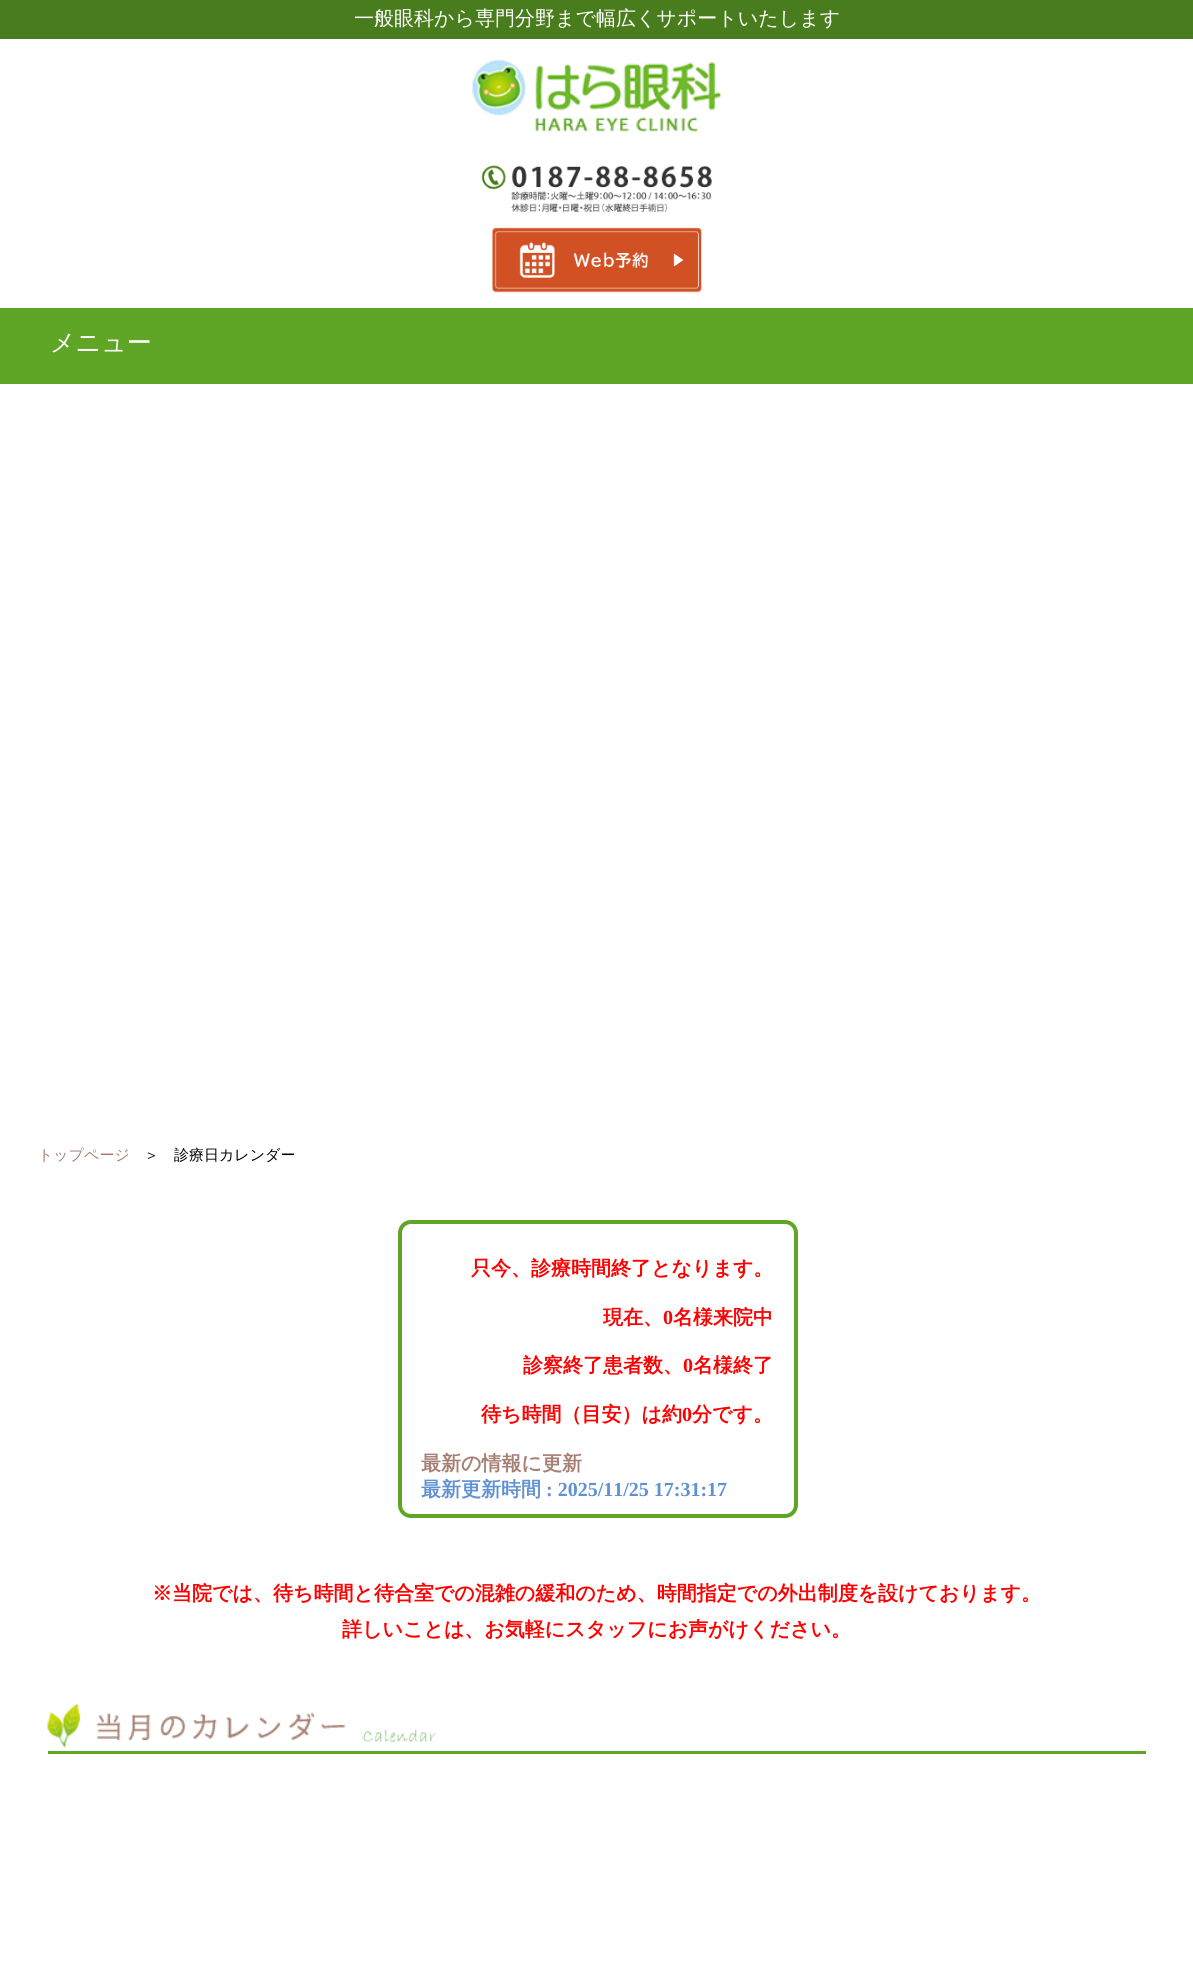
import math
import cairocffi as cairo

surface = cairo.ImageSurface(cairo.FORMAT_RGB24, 1193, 1963)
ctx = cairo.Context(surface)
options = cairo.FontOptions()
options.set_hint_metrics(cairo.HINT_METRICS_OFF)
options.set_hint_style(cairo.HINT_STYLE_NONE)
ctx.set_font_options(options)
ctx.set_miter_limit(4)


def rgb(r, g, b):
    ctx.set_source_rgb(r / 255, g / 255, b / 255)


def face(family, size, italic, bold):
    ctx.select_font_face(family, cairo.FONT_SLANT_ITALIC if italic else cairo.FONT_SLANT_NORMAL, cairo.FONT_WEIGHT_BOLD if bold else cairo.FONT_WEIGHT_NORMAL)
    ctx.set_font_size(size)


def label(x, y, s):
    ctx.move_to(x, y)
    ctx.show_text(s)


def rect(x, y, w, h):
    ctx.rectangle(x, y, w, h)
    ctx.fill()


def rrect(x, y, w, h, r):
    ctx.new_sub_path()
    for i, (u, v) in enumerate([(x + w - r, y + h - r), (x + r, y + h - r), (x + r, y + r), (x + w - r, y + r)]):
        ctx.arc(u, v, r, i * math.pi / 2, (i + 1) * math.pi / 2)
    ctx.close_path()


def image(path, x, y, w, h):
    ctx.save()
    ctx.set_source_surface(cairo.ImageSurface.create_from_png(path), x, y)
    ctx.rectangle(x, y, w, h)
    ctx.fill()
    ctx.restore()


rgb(255, 255, 255)
ctx.paint()
rgb(72, 124, 29)
rect(0, 0, 1193, 39)
face('WenQuanYi Zen Hei Medium', 20, 0, 0)
rgb(255, 255, 255)
label(354, 25, '一般眼科から専門分野まで幅広くサポートいたします')
image('image0.png', 472, 60, 250, 72)
image('image1.png', 481, 165, 231, 48)
image('image2.png', 492, 227, 210, 66)
rgb(95, 165, 38)
rect(0, 308, 1193, 76)
face('WenQuanYi Zen Hei Medium', 25, 0, 0)
rgb(255, 255, 255)
label(50, 351, 'メニュー')
face('WenQuanYi Zen Hei Medium', 15, 0, 0)
rgb(166, 127, 116)
label(38, 1160, 'トップページ')
rgb(0, 0, 0)
label(144, 1160, '＞　診療日カレンダー')
rrect(400, 1222, 396, 294, 11)
rgb(95, 165, 38)
ctx.set_line_width(4)
ctx.stroke()
face('WenQuanYi Zen Hei', 20, 0, 1)
rgb(255, 0, 0)
label(471, 1275, '只今、診療時間終了となります。')
label(603, 1324, '現在、')
face('Liberation Serif', 20, 0, 1)
label(663, 1324, '0')
face('WenQuanYi Zen Hei', 20, 0, 1)
label(673, 1324, '名様来院中')
label(523, 1372, '診察終了患者数、')
face('Liberation Serif', 20, 0, 1)
label(683, 1372, '0')
face('WenQuanYi Zen Hei', 20, 0, 1)
label(693, 1372, '名様終了')
label(481, 1421, '待ち時間（目安）は約')
face('Liberation Serif', 20, 0, 1)
label(682, 1421, '0')
face('WenQuanYi Zen Hei', 20, 0, 1)
label(692, 1421, '分です。')
rgb(166, 127, 116)
label(421, 1470, '最新の情報に更新')
rgb(96, 145, 211)
label(421, 1496, '最新更新時間')
face('Liberation Serif', 20, 0, 1)
label(546, 1496, ': 2025/11/25 17:31:17')
face('WenQuanYi Zen Hei', 20, 0, 1)
rgb(255, 0, 0)
label(152, 1600, '※当院では、待ち時間と待合室での混雑の緩和のため、時間指定での外出制度を設けております。')
label(342, 1636, '詳しいことは、お気軽にスタッフにお声がけください。')
rgb(95, 165, 38)
rect(48, 1751, 1098, 3)
image('image3.png', 47, 1703, 390, 46)
surface.write_to_png('render.png')
